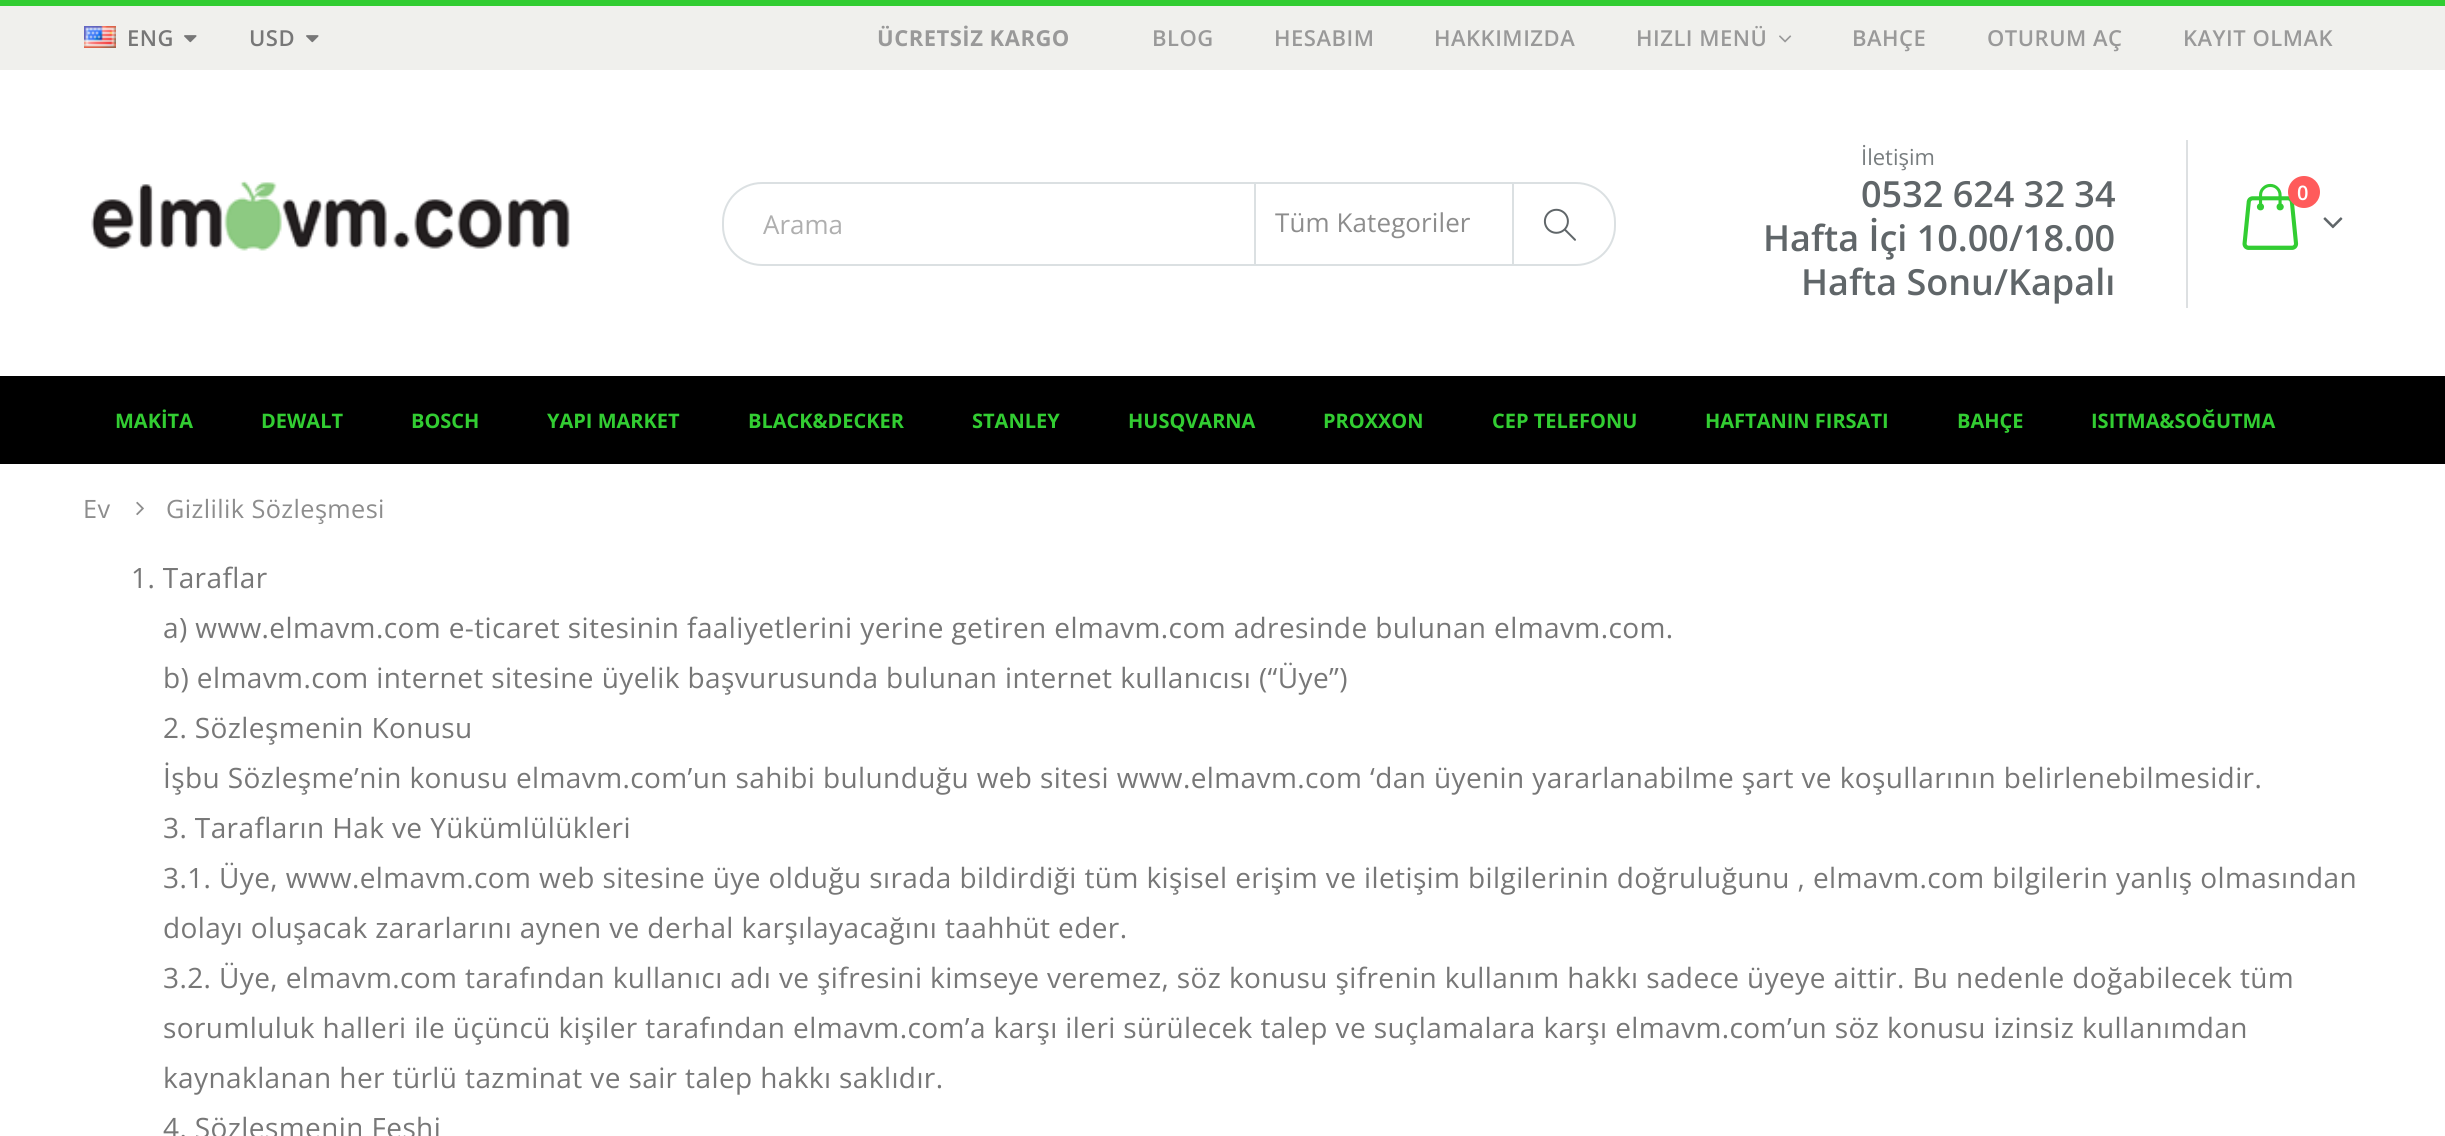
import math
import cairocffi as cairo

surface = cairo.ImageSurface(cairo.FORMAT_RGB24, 2445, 1136)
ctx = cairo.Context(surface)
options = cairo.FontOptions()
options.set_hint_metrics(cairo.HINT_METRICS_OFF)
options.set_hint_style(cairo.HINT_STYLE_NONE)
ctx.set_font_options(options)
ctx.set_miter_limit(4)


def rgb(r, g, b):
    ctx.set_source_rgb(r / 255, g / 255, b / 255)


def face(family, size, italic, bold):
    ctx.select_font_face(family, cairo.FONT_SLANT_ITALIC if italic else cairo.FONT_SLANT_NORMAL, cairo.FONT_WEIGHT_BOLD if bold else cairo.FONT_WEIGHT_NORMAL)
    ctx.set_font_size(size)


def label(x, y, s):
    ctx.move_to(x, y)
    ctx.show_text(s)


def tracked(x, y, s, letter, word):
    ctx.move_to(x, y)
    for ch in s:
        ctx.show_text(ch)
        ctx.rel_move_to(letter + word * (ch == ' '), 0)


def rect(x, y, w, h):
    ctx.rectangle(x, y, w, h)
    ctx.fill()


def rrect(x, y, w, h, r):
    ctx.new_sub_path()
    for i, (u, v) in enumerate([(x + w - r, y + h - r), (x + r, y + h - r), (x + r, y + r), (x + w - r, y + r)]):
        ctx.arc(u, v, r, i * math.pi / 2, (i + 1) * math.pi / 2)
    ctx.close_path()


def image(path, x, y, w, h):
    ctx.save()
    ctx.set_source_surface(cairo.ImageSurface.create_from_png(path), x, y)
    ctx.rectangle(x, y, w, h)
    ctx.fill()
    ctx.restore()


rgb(255, 255, 255)
ctx.paint()
rgb(50, 205, 50)
rect(0, 0, 2445, 6)
rgb(240, 240, 237)
rect(0, 6, 2445, 64)
image('image0.png', 84, 26, 32, 22)
face('Open Sans SemiBold', 22, 0, 0)
rgb(119, 119, 119)
tracked(127, 46, 'ENG', 0.5, 0)
image('image1.png', 184, 35, 13, 8)
tracked(249, 46, 'USD', 0.5, 0)
image('image1.png', 306, 35, 13, 8)
face('Open Sans', 22, 0, 1)
rgb(153, 153, 153)
tracked(877, 46, 'ÜCRETSİZ KARGO', 0.5, 0)
face('Open Sans SemiBold', 22, 0, 0)
tracked(1152, 46, 'BLOG', 0.5, 0)
tracked(1274, 46, 'HESABIM', 0.5, 0)
tracked(1434, 46, 'HAKKIMIZDA', 0.5, 0)
tracked(1636, 46, 'HIZLI MENÜ', 0.5, 0)
image('image2.png', 1779, 35, 13, 8)
tracked(1852, 46, 'BAHÇE', 0.5, 0)
tracked(1987, 46, 'OTURUM AÇ', 0.5, 0)
tracked(2183, 46, 'KAYIT OLMAK', 0.5, 0)
image('image3.png', 91, 180, 479, 71)
rrect(723, 183, 892, 82, 39)
rgb(219, 224, 226)
ctx.stroke()
rect(1254, 184, 2, 80)
face('Open Sans', 26, 0, 0)
rgb(175, 175, 175)
label(763, 234, 'Arama')
rgb(219, 224, 226)
rect(1512, 184, 2, 80)
rgb(141, 141, 141)
tracked(1275, 232, 'Tüm Kategoriler', 0.1, 0)
image('image4.png', 1543, 208, 33, 33)
rgb(221, 224, 226)
rect(2186, 140, 2, 168)
face('Open Sans', 22, 0, 0)
rgb(120, 125, 127)
label(1861, 165, 'İletişim')
face('Open Sans SemiBold', 36, 0, 0)
rgb(96, 102, 105)
label(1861, 207, '0532 624 32 34')
label(1763, 251, 'Hafta İçi 10.00/18.00')
label(1801, 295, 'Hafta Sonu/Kapalı')
image('image5.png', 2242, 183, 57, 67)
rgb(255, 91, 91)
ctx.arc(2304, 192, 16, 0, 2 * math.pi)
ctx.fill()
face('Open Sans SemiBold', 20, 0, 0)
rgb(255, 255, 255)
tracked(2297, 200, '0', 0.4, 0)
image('image6.png', 2323, 217, 20, 12)
rgb(0, 0, 0)
rect(0, 376, 2445, 88)
face('Open Sans', 20, 0, 1)
rgb(50, 205, 50)
label(115, 428, 'MAKİTA')
label(261, 428, 'DEWALT')
label(411, 428, 'BOSCH')
label(547, 428, 'YAPI MARKET')
label(748, 428, 'BLACK&DECKER')
label(972, 428, 'STANLEY')
label(1128, 428, 'HUSQVARNA')
label(1323, 428, 'PROXXON')
label(1492, 428, 'CEP TELEFONU')
label(1705, 428, 'HAFTANIN FIRSATI')
label(1957, 428, 'BAHÇE')
label(2091, 428, 'ISITMA&SOĞUTMA')
face('Open Sans', 25.25, 0, 0)
rgb(141, 141, 141)
tracked(83, 518, 'Ev', 0.4, 0)
image('image7.png', 136, 501, 8, 15)
tracked(166, 518, 'Gizlilik Sözleşmesi', 0.4, 0)
face('Open Sans', 28, 0, 0)
rgb(119, 119, 119)
tracked(131, 588, '1. Taraflar', 0.4, 0)
tracked(163, 638, 'a) www.elmavm.com e-ticaret sitesinin faaliyetlerini yerine getiren elmavm.com adresinde bulunan elmavm.com.', 0.4, 0)
tracked(163, 688, 'b) elmavm.com internet sitesine üyelik başvurusunda bulunan internet kullanıcısı (“Üye”)', 0.4, 0)
tracked(163, 738, '2. Sözleşmenin Konusu', 0.4, 0)
tracked(163, 788, 'İşbu Sözleşme’nin konusu elmavm.com’un sahibi bulunduğu web sitesi www.elmavm.com ‘dan üyenin yararlanabilme şart ve koşullarının belirlenebilmesidir.', 0.4, 0)
tracked(163, 838, '3. Tarafların Hak ve Yükümlülükleri', 0.4, 0)
tracked(163, 888, '3.1. Üye, www.elmavm.com web sitesine üye olduğu sırada bildirdiği tüm kişisel erişim ve iletişim bilgilerinin doğruluğunu , elmavm.com bilgilerin yanlış olmasından', 0.4, 0)
tracked(163, 938, 'dolayı oluşacak zararlarını aynen ve derhal karşılayacağını taahhüt eder.', 0.4, 0)
tracked(163, 988, '3.2. Üye, elmavm.com tarafından kullanıcı adı ve şifresini kimseye veremez, söz konusu şifrenin kullanım hakkı sadece üyeye aittir. Bu nedenle doğabilecek tüm', 0.4, 0)
tracked(163, 1038, 'sorumluluk halleri ile üçüncü kişiler tarafından elmavm.com’a karşı ileri sürülecek talep ve suçlamalara karşı elmavm.com’un söz konusu izinsiz kullanımdan', 0.4, 0)
tracked(163, 1088, 'kaynaklanan her türlü tazminat ve sair talep hakkı saklıdır.', 0.4, 0)
tracked(163, 1138, '4. Sözleşmenin Feshi', 0.4, 0)
surface.write_to_png('render.png')
